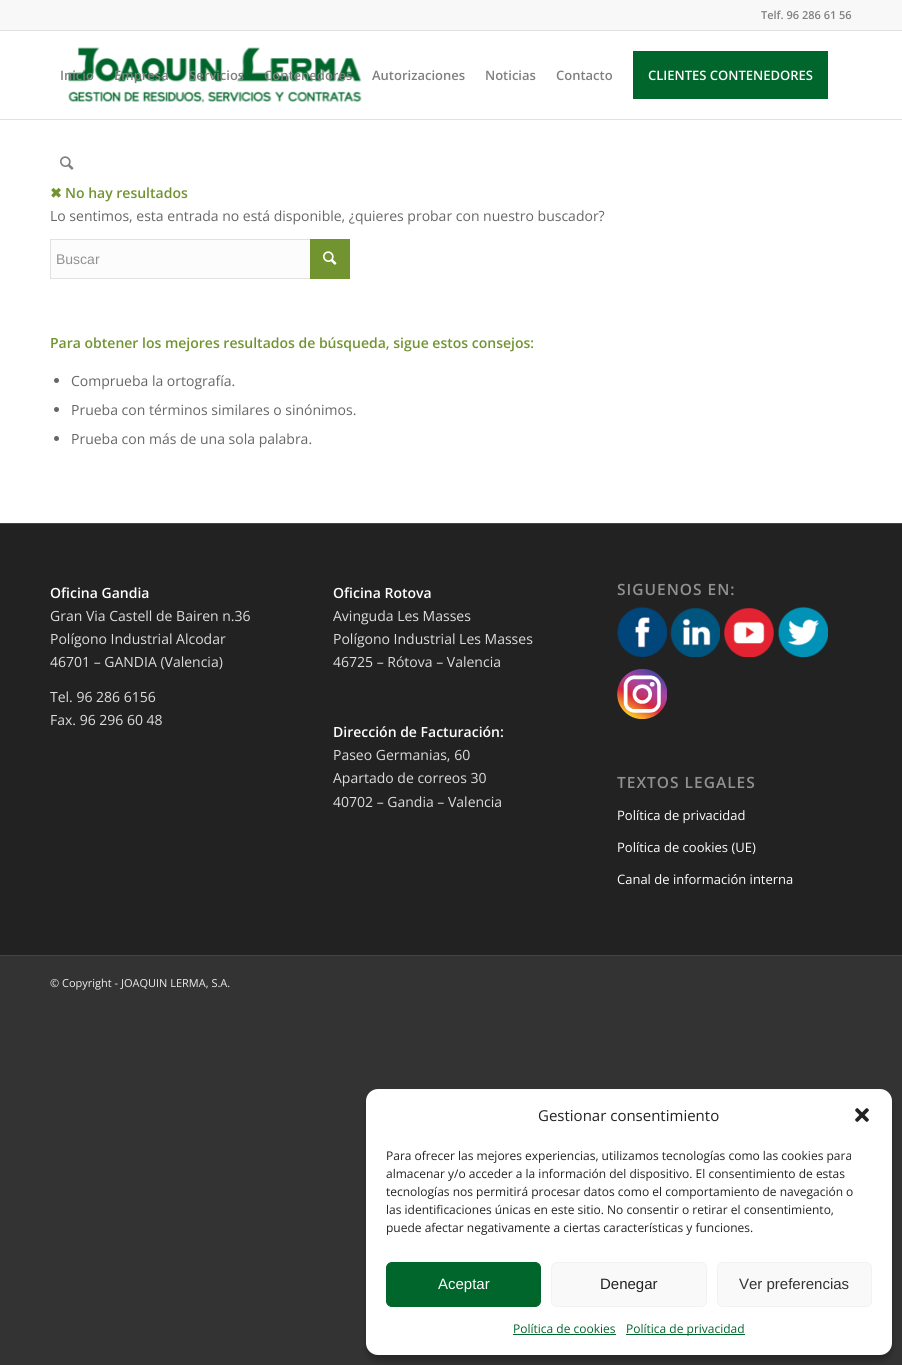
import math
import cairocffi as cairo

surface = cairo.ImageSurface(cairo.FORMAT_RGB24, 902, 1365)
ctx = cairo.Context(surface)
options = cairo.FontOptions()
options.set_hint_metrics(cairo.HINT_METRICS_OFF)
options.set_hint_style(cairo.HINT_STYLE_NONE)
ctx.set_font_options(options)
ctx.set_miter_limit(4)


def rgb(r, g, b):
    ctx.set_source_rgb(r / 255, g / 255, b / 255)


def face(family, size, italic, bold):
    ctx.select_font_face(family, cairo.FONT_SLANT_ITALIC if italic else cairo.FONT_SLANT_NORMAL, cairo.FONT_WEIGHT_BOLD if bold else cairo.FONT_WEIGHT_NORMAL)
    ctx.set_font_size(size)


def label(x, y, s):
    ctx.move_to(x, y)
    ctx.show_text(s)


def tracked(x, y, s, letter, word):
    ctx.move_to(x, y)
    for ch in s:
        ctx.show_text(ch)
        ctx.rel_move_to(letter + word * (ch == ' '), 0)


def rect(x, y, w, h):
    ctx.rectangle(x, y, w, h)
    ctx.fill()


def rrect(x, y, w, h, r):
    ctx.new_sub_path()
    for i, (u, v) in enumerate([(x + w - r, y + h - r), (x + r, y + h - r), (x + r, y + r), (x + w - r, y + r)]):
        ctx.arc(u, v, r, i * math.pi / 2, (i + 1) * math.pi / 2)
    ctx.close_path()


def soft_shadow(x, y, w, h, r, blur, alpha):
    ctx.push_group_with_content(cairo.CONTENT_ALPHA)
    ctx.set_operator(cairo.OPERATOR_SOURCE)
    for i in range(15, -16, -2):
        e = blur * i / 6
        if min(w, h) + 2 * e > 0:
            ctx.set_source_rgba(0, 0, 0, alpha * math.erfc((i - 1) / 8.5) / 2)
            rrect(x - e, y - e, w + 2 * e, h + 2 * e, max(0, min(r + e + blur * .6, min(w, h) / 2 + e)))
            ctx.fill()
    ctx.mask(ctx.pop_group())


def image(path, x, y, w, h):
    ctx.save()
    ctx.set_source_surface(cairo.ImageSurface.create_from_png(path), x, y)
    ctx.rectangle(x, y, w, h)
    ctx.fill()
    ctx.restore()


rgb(51, 51, 51)
ctx.paint()
rgb(248, 248, 248)
rect(0, 0, 902, 30)
rgb(225, 225, 225)
rect(0, 30, 902, 1)
face('Open Sans SemiBold', 11, 0, 0)
rgb(128, 128, 128)
label(761, 19, 'Telf. 96 286 61 56')
rgb(255, 255, 255)
rect(0, 31, 902, 492)
rgb(225, 225, 225)
rect(0, 119, 902, 1)
image('image0.png', 68, 47, 294, 56)
face('Open Sans SemiBold', 13, 0, 0)
rgb(128, 128, 128)
label(60, 80, 'Inicio')
label(114, 80, 'Empresa')
label(189, 80, 'Servicios')
label(264, 80, 'Contenedores')
label(372, 80, 'Autorizaciones')
label(485, 80, 'Noticias')
label(556, 80, 'Contacto')
rgb(0, 102, 43)
rect(633, 51, 195, 48)
rgb(255, 255, 255)
label(648, 80, 'CLIENTES CONTENEDORES')
image('image1.png', 60, 156, 14, 14)
face('DejaVu Sans', 14, 0, 1)
rgb(113, 148, 48)
label(50, 198, '✖')
face('Open Sans SemiBold', 14, 0, 0)
label(65, 198, 'No hay resultados')
face('Open Sans', 14, 0, 0)
rgb(102, 102, 102)
label(50, 221, 'Lo sentimos, esta entrada no está disponible, ¿quieres probar con nuestro buscador?')
rgb(252, 252, 252)
rect(51, 240, 259, 38)
ctx.rectangle(50.5, 239.5, 299, 39)
rgb(225, 225, 225)
ctx.set_line_width(1)
ctx.stroke()
face('Liberation Sans', 14, 0, 0)
rgb(145, 145, 145)
label(56, 264, 'Buscar')
rgb(113, 148, 48)
rect(310, 239, 40, 40)
image('image2.png', 323, 251, 14, 14)
face('Open Sans SemiBold', 14, 0, 0)
label(50, 348, 'Para obtener los mejores resultados de búsqueda, sigue estos consejos:')
rgb(102, 102, 102)
ctx.new_path()
ctx.arc(56.5, 380.5, 2.5, 0, 2 * math.pi)
ctx.fill()
face('Open Sans', 14, 0, 0)
label(71, 386, 'Comprueba la ortografía.')
ctx.new_path()
ctx.arc(56.5, 409.5, 2.5, 0, 2 * math.pi)
ctx.fill()
label(71, 415, 'Prueba con términos similares o sinónimos.')
ctx.new_path()
ctx.arc(56.5, 438.5, 2.5, 0, 2 * math.pi)
ctx.fill()
label(71, 444, 'Prueba con más de una sola palabra.')
rgb(34, 34, 34)
rect(0, 524, 902, 431)
rgb(68, 68, 68)
rect(0, 523, 902, 1)
face('Open Sans SemiBold', 14, 0, 0)
rgb(255, 255, 255)
label(50, 598, 'Oficina Gandia')
face('Open Sans', 14, 0, 0)
rgb(221, 221, 221)
label(50, 621, 'Gran Via Castell de Bairen n.36')
label(50, 644, 'Polígono Industrial Alcodar')
label(50, 667, '46701 – GANDIA (Valencia)')
label(50, 702, 'Tel. 96 286 6156')
label(50, 725, 'Fax. 96 296 60 48')
face('Open Sans SemiBold', 14, 0, 0)
rgb(255, 255, 255)
label(333, 598, 'Oficina Rotova')
face('Open Sans', 14, 0, 0)
rgb(221, 221, 221)
label(333, 621, 'Avinguda Les Masses')
label(333, 644, 'Polígono Industrial Les Masses')
label(333, 667, '46725 – Rótova – Valencia')
face('Open Sans SemiBold', 14, 0, 0)
rgb(255, 255, 255)
label(333, 737, 'Dirección de Facturación:')
face('Open Sans', 14, 0, 0)
rgb(221, 221, 221)
label(333, 760, 'Paseo Germanias, 60')
label(333, 783, 'Apartado de correos 30')
label(333, 807, '40702 – Gandia – Valencia')
face('Open Sans SemiBold', 15.5, 0, 0)
rgb(145, 145, 145)
tracked(617, 595, 'SIGUENOS EN:', 1, 0)
image('image3.png', 617, 607, 50, 50)
image('image4.png', 670, 608, 50, 49)
image('image5.png', 724, 608, 50, 49)
image('image6.png', 778, 607, 50, 50)
image('image7.png', 617, 669, 50, 50)
tracked(617, 788, 'TEXTOS LEGALES', 1, 0)
face('Open Sans', 13, 0, 0)
rgb(255, 255, 255)
label(617, 820, 'Política de privacidad')
label(617, 852, 'Política de cookies (UE)')
label(617, 884, 'Canal de información interna')
rgb(68, 68, 68)
rect(0, 955, 902, 1)
face('Open Sans', 11, 0, 0)
rgb(238, 238, 238)
label(50, 987, '© Copyright - JOAQUIN LERMA, S.A.')
rgb(0, 0, 0)
soft_shadow(366, 1095, 526, 266, 12, 3, 0.23)
rgb(255, 255, 255)
rrect(366, 1089, 526, 266, 12)
ctx.fill()
face('Open Sans', 15, 0, 0)
rgb(34, 34, 34)
label(538, 1121, 'Gestionar consentimiento')
image('image8.png', 855, 1108, 14, 14)
face('Open Sans', 12, 0, 0)
label(386, 1160, 'Para ofrecer las mejores experiencias, utilizamos tecnologías como las cookies para')
label(386, 1178, 'almacenar y/o acceder a la información del dispositivo. El consentimiento de estas')
label(386, 1196, 'tecnologías nos permitirá procesar datos como el comportamiento de navegación o')
label(386, 1214, 'las identificaciones únicas en este sitio. No consentir o retirar el consentimiento,')
label(386, 1232, 'puede afectar negativamente a ciertas características y funciones.')
rgb(0, 102, 43)
rrect(386.5, 1262.5, 154, 44, 5.5)
ctx.fill_preserve()
ctx.stroke()
face('Liberation Sans', 15, 0, 0)
rgb(255, 255, 255)
label(438, 1289, 'Aceptar')
rgb(249, 249, 249)
rrect(551.5, 1262.5, 155, 44, 5.5)
ctx.fill_preserve()
rgb(242, 242, 242)
ctx.stroke()
rgb(34, 34, 34)
label(600, 1289, 'Denegar')
rgb(249, 249, 249)
rrect(717.5, 1262.5, 154, 44, 5.5)
ctx.fill_preserve()
rgb(242, 242, 242)
ctx.stroke()
rgb(51, 51, 51)
label(739, 1289, 'Ver preferencias')
face('Open Sans', 12, 0, 0)
rgb(0, 102, 43)
label(513, 1333, 'Política de cookies')
rect(513, 1334, 103, 1)
rect(626, 1334, 119, 1)
label(626, 1333, 'Política de privacidad')
surface.write_to_png('render.png')
